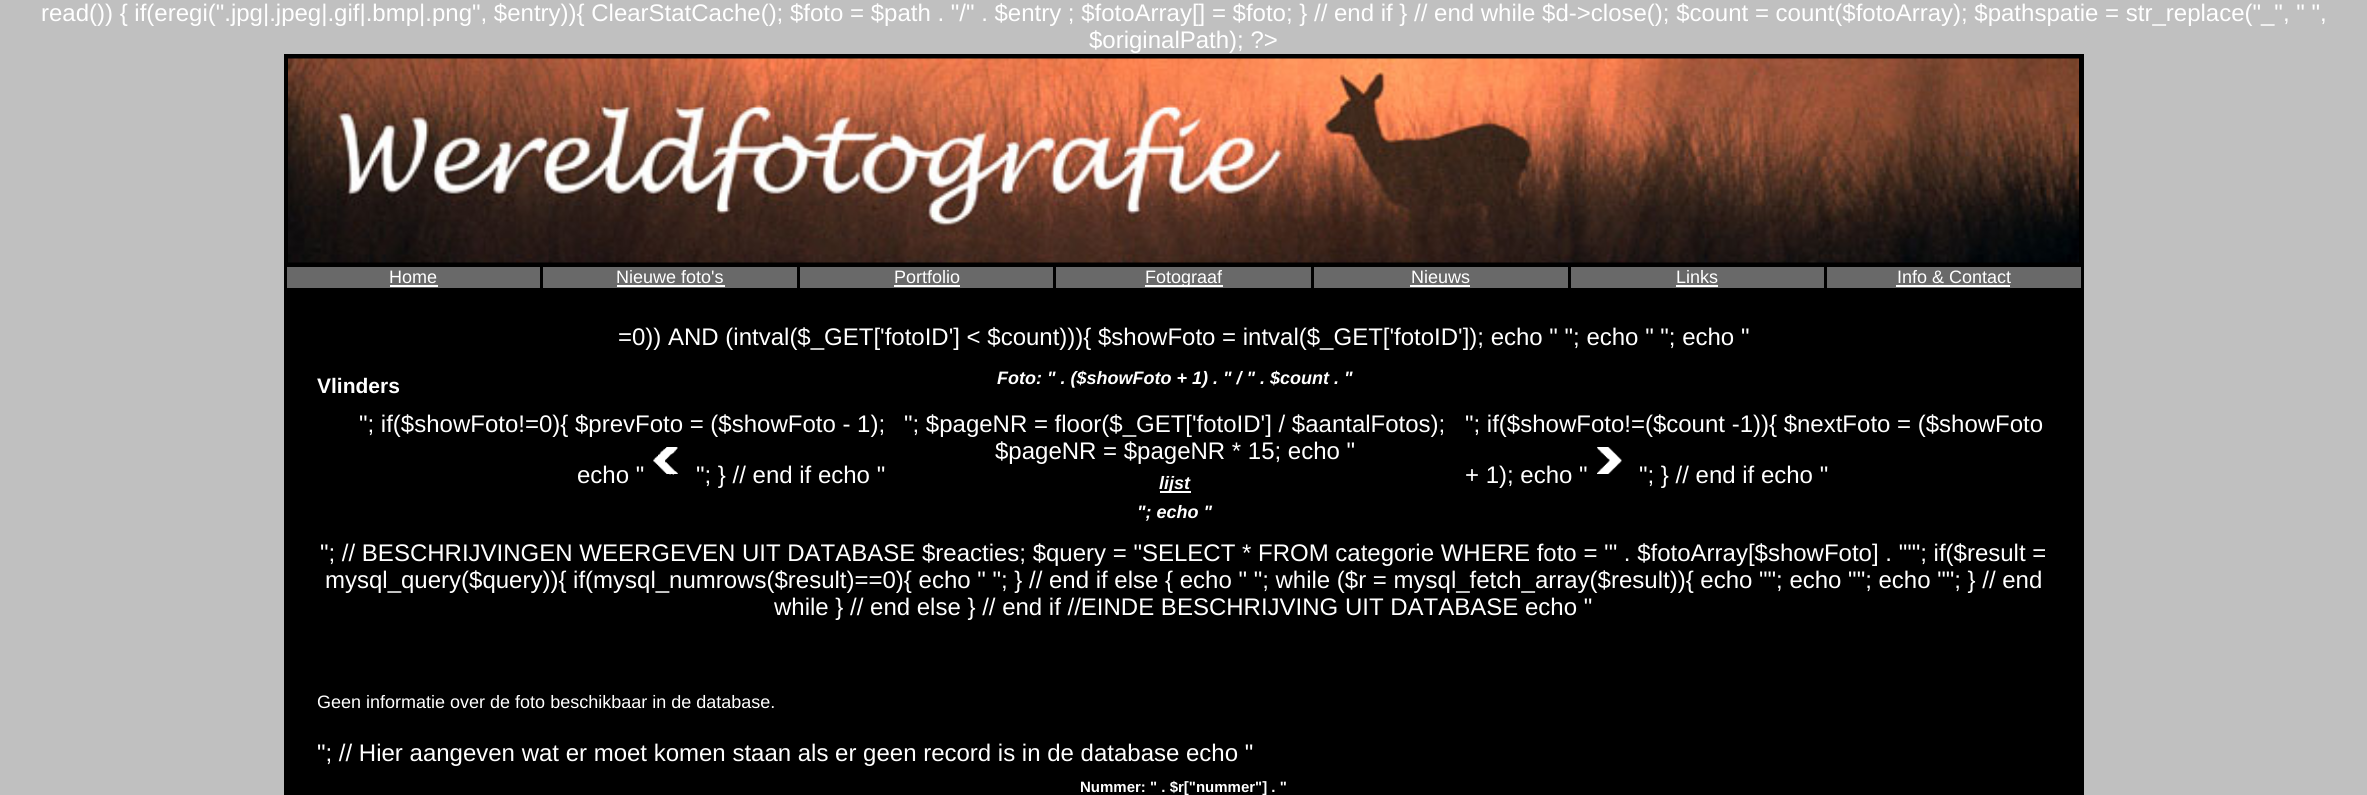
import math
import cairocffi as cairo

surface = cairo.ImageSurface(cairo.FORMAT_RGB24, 2367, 795)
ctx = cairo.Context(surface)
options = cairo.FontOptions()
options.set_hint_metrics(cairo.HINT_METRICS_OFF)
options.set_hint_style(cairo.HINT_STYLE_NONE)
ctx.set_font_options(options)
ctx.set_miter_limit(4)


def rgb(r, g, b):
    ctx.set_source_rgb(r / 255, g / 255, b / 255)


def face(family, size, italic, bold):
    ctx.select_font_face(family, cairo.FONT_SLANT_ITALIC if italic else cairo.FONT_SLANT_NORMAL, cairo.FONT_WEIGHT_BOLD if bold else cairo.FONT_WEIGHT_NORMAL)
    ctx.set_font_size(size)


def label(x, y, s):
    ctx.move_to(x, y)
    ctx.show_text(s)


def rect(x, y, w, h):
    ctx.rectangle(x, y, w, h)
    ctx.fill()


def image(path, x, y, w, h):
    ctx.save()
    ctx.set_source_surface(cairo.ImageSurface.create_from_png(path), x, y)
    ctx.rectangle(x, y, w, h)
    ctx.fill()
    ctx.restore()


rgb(192, 192, 192)
ctx.paint()
face('Liberation Sans', 24, 0, 0)
rgb(255, 255, 255)
label(41, 21, 'read()) { if(eregi(".jpg|.jpeg|.gif|.bmp|.png", $entry)){ ClearStatCache(); $foto = $path . "/" . $entry ; $fotoArray[] = $foto; } // end if } // end while $d->close(); $count = count($fotoArray); $pathspatie = str_replace("_", " ",')
label(1089, 48, '$originalPath); ?>')
rgb(0, 0, 0)
rect(284, 54, 1800, 741)
image('image0.png', 288, 58, 1791, 205)
rgb(105, 105, 105)
rect(287, 267, 253, 21)
face('Liberation Sans', 18, 0, 0)
rgb(255, 255, 255)
label(389, 283, 'Home')
rect(390, 285, 48, 2)
rgb(105, 105, 105)
rect(543, 267, 254, 21)
rgb(255, 255, 255)
label(616, 283, 'Nieuwe foto\'s')
rect(617, 285, 108, 2)
rgb(105, 105, 105)
rect(800, 267, 253, 21)
rgb(255, 255, 255)
label(894, 283, 'Portfolio')
rect(894, 285, 66, 2)
rgb(105, 105, 105)
rect(1056, 267, 255, 21)
rgb(255, 255, 255)
rect(1145, 285, 78, 2)
label(1145, 283, 'Fotograaf')
rgb(105, 105, 105)
rect(1314, 267, 254, 21)
rgb(255, 255, 255)
label(1411, 283, 'Nieuws')
rect(1410, 285, 60, 2)
rgb(105, 105, 105)
rect(1571, 267, 253, 21)
rgb(255, 255, 255)
label(1676, 283, 'Links')
rect(1676, 285, 42, 2)
rgb(105, 105, 105)
rect(1827, 267, 254, 21)
rgb(255, 255, 255)
label(1897, 283, 'Info & Contact')
rect(1896, 285, 114, 2)
face('Liberation Sans', 24, 0, 0)
label(618, 345, '=0)) AND (intval($_GET[\'fotoID\'] < $count))){ $showFoto = intval($_GET[\'fotoID\']); echo " "; echo " "; echo "')
face('Liberation Sans', 21, 0, 1)
label(317, 393, 'Vlinders')
face('Liberation Sans', 18, 1, 1)
label(997, 384, 'Foto: " . ($showFoto + 1) . " / " . $count . "')
face('Liberation Sans', 24, 0, 0)
label(359, 432, '"; if($showFoto!=0){ $prevFoto = ($showFoto - 1);')
label(577, 483, 'echo "')
image('image1.png', 653, 447, 25, 28)
label(696, 483, '"; } // end if echo "')
label(904, 432, '"; $pageNR = floor($_GET[\'fotoID\'] / $aantalFotos);')
label(995, 459, '$pageNR = $pageNR * 15; echo "')
rect(1160, 491, 31, 2)
face('Liberation Sans', 18, 1, 1)
label(1159, 489, 'lijst')
label(1137, 518, '"; echo "')
face('Liberation Sans', 24, 0, 0)
label(1465, 432, '"; if($showFoto!=($count -1)){ $nextFoto = ($showFoto')
image('image2.png', 1597, 447, 25, 27)
label(1465, 483, '+ 1); echo "')
label(1639, 483, '"; } // end if echo "')
label(320, 561, '"; // BESCHRIJVINGEN WEERGEVEN UIT DATABASE $reacties; $query = "SELECT * FROM categorie WHERE foto = \'" . $fotoArray[$showFoto] . "\'"; if($result =')
label(325, 588, 'mysql_query($query)){ if(mysql_numrows($result)==0){ echo " "; } // end if else { echo " "; while ($r = mysql_fetch_array($result)){ echo ""; echo ""; echo ""; } // end')
label(774, 615, 'while } // end else } // end if //EINDE BESCHRIJVING UIT DATABASE echo "')
face('Liberation Sans', 18, 0, 0)
label(317, 708, 'Geen informatie over de foto beschikbaar in de database.')
face('Liberation Sans', 24, 0, 0)
label(317, 761, '"; // Hier aangeven wat er moet komen staan als er geen record is in de database echo "')
face('Liberation Sans', 15, 0, 1)
label(1080, 792, 'Nummer: " . $r["nummer"] . "')
surface.write_to_png('render.png')
